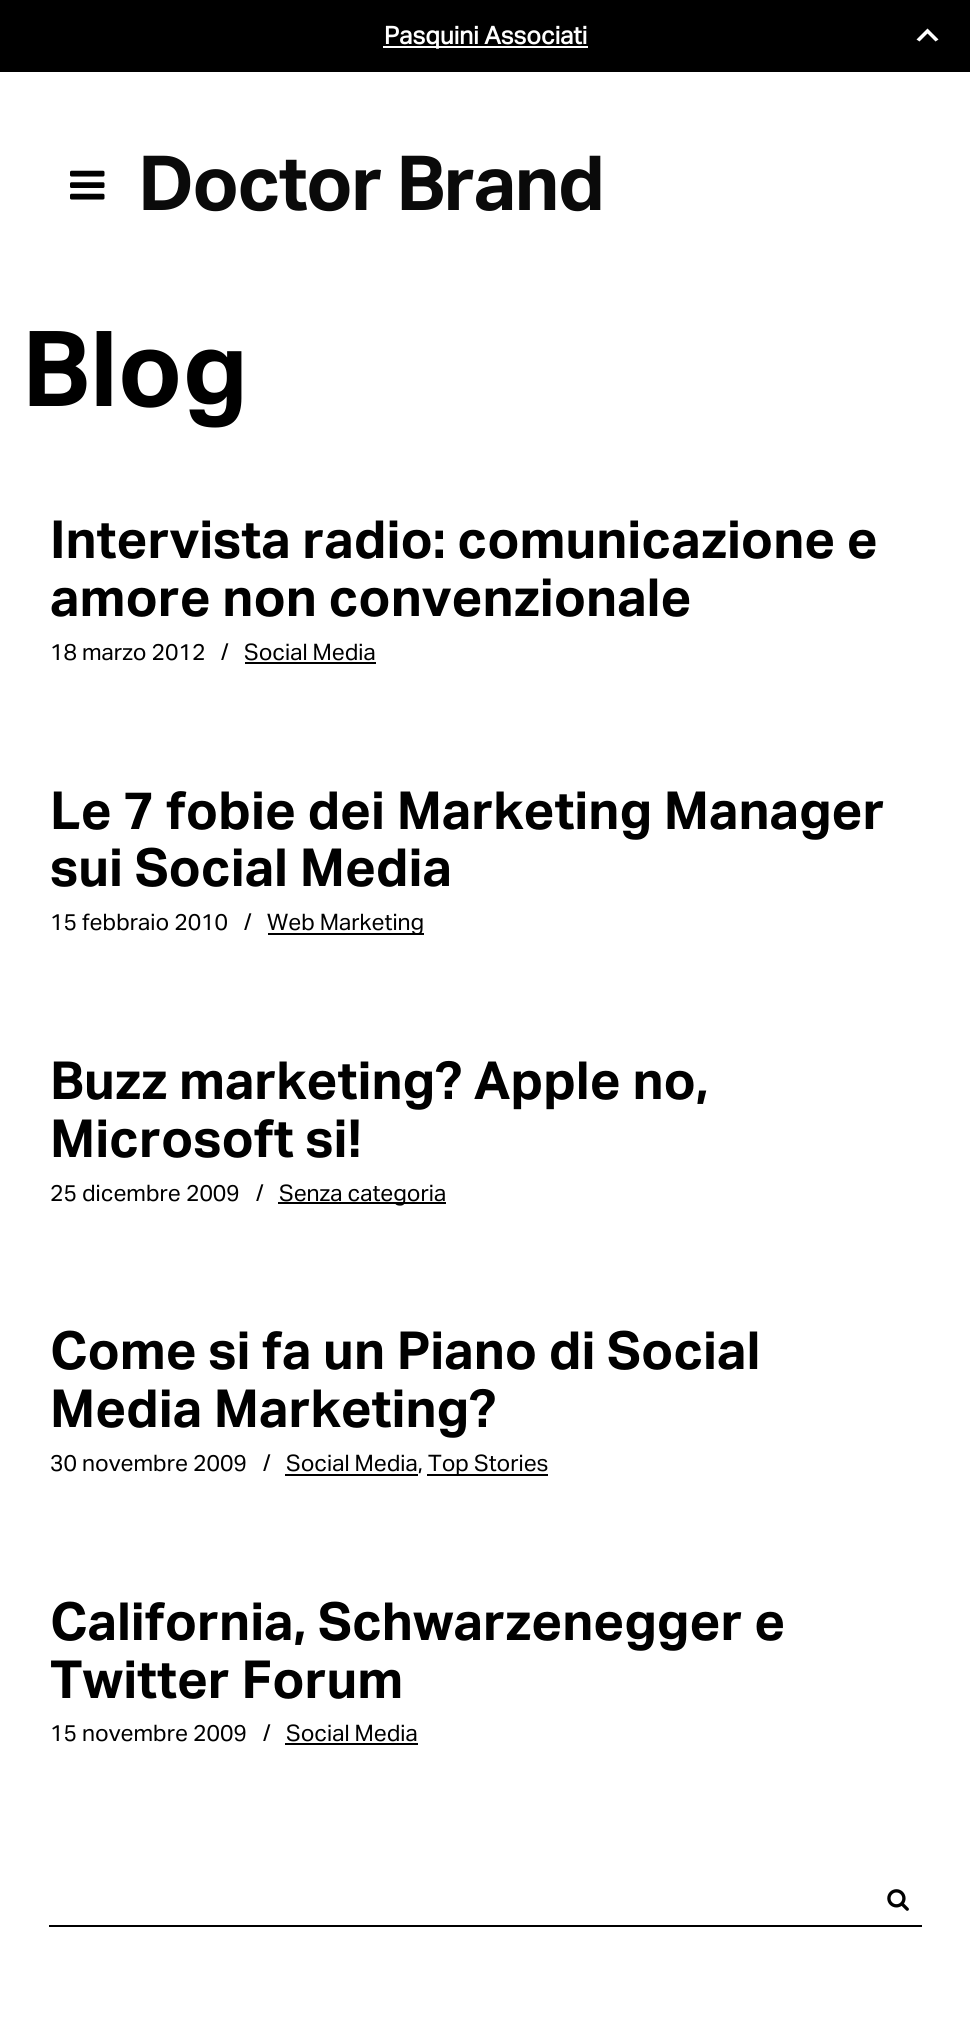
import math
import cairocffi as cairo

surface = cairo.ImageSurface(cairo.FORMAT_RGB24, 970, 2044)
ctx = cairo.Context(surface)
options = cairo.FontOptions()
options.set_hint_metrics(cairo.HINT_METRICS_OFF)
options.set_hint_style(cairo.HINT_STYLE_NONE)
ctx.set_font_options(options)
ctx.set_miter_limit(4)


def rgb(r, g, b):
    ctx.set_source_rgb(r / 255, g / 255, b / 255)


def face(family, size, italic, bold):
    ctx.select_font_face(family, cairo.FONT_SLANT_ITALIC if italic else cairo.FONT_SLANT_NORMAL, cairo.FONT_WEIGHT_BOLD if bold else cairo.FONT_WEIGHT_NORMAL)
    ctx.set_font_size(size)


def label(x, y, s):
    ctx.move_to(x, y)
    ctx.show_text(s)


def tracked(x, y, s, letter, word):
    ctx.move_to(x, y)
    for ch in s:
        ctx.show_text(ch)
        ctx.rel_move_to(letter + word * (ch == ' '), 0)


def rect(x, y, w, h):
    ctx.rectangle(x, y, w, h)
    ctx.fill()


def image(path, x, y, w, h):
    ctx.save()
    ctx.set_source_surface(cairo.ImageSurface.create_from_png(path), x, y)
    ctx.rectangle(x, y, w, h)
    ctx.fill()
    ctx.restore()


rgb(255, 255, 255)
ctx.paint()
rgb(0, 0, 0)
rect(0, 0, 970, 72)
rgb(255, 255, 255)
rect(383, 46, 205, 2)
face('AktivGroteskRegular', 24.5, 0, 1)
label(384, 44, 'Pasquini Associati')
ctx.new_path()
ctx.move_to(935.5, 41.5)
ctx.line_to(927.5, 33.5)
ctx.line_to(919.5, 41.5)
ctx.line_to(916.5, 39.5)
ctx.line_to(927.5, 28.5)
ctx.line_to(938.5, 39.5)
ctx.close_path()
ctx.fill()
image('image0.png', 70, 170, 35, 30)
face('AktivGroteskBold', 76, 0, 1)
rgb(10, 10, 10)
tracked(138, 210, 'Doctor Brand', -1.75, 0)
face('AktivGroteskBold', 105, 0, 1)
rgb(0, 0, 0)
label(22, 406, 'Blog')
face('AktivGroteskBold', 52.5, 0, 1)
label(50, 558, 'Intervista radio: comunicazione e')
label(50, 616, 'amore non convenzionale')
face('AktivGroteskRegular', 22.75, 0, 0)
label(50, 660, '18 marzo 2012')
label(221, 660, '/')
label(244, 660, 'Social Media')
rect(245, 662, 131, 2)
face('AktivGroteskBold', 52.5, 0, 1)
label(50, 829, 'Le 7 fobie dei Marketing Manager')
label(50, 886, 'sui Social Media')
face('AktivGroteskRegular', 22.75, 0, 0)
label(50, 930, '15 febbraio 2010')
label(244, 930, '/')
rect(268, 933, 156, 2)
label(267, 930, 'Web Marketing')
face('AktivGroteskBold', 52.5, 0, 1)
label(50, 1099, 'Buzz marketing? Apple no,')
label(50, 1157, 'Microsoft si!')
face('AktivGroteskRegular', 22.75, 0, 0)
label(50, 1201, '25 dicembre 2009')
label(256, 1201, '/')
rect(278, 1202, 168, 2)
label(279, 1201, 'Senza categoria')
face('AktivGroteskBold', 52.5, 0, 1)
label(50, 1369, 'Come si fa un Piano di Social')
label(50, 1427, 'Media Marketing?')
face('AktivGroteskRegular', 22.75, 0, 0)
label(50, 1471, '30 novembre 2009')
label(263, 1471, '/')
label(286, 1471, 'Social Media,')
rect(285, 1474, 133, 2)
rect(427, 1474, 121, 2)
label(428, 1471, 'Top Stories')
face('AktivGroteskBold', 52.5, 0, 1)
label(50, 1640, 'California, Schwarzenegger e')
label(50, 1698, 'Twitter Forum')
face('AktivGroteskRegular', 22.75, 0, 0)
label(50, 1741, '15 novembre 2009')
label(263, 1741, '/')
label(286, 1741, 'Social Media')
rect(285, 1743, 133, 2)
rect(49, 1925, 873, 2)
image('image1.png', 887, 1889, 22, 22)
surface.write_to_png('render.png')
